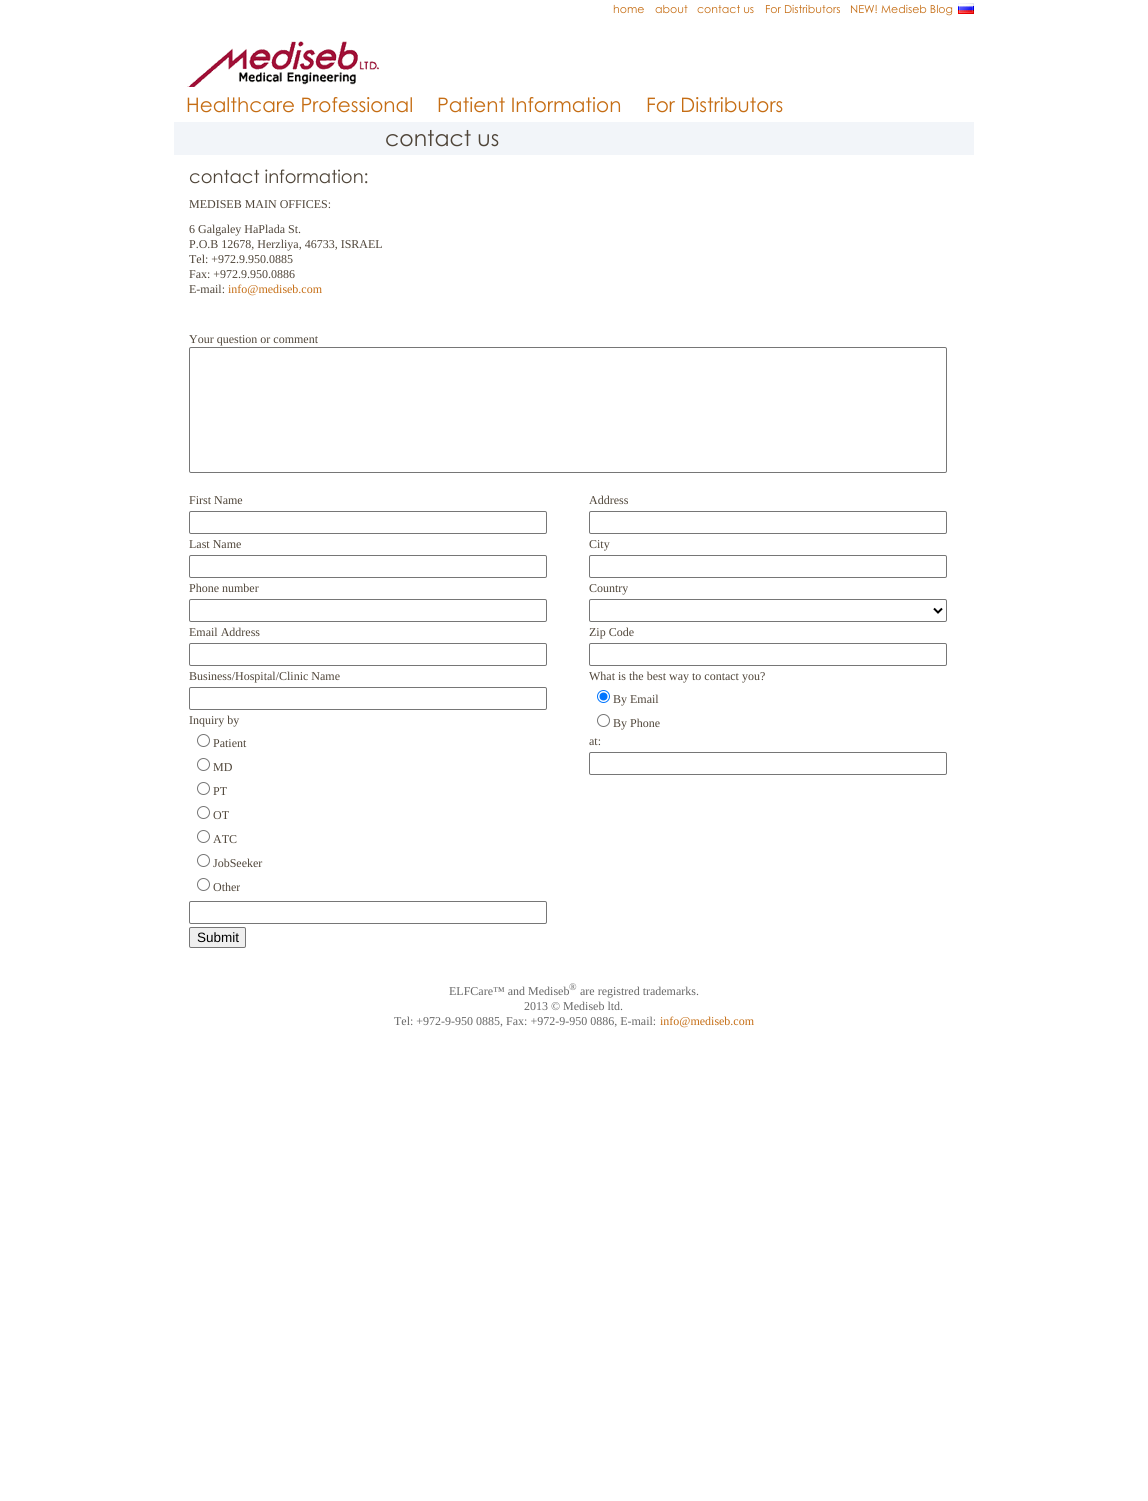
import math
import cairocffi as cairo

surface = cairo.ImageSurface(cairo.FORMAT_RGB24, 1148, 1501)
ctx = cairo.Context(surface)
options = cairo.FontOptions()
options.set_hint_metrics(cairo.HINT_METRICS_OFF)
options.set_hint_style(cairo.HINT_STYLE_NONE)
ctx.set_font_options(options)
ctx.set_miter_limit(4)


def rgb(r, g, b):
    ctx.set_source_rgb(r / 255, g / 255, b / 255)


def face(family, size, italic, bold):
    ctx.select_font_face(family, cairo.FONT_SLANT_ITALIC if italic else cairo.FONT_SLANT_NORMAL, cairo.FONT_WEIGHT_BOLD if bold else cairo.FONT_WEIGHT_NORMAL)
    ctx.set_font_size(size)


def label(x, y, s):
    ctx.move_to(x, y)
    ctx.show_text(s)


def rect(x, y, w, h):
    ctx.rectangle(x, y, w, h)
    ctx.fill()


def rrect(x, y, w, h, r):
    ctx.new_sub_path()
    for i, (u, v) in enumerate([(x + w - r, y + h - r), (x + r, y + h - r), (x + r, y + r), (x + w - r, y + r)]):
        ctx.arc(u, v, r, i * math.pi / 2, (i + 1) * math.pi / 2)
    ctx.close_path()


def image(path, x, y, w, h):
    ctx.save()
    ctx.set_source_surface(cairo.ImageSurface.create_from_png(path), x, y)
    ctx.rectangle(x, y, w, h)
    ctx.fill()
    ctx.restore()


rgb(255, 255, 255)
ctx.paint()
face('Century Gothic', 11, 0, 0)
rgb(197, 109, 20)
label(613, 13, 'home')
label(655, 13, 'about')
label(697, 13, 'contact us')
label(765, 13, 'For Distributors')
label(850, 13, 'NEW! Mediseb Blog')
image('image0.png', 958, 3, 16, 11)
image('image1.png', 187, 41, 192, 46)
face('Century Gothic', 20, 0, 0)
label(186, 112, 'Healthcare Professional')
label(437, 112, 'Patient Information')
label(646, 112, 'For Distributors')
rgb(242, 245, 249)
rect(174, 122, 800, 33)
face('Century Gothic', 22, 0, 0)
rgb(79, 69, 57)
label(385, 146, 'contact us')
face('Century Gothic', 18, 0, 0)
label(189, 183, 'contact information:')
face('Liberation Serif', 12, 0, 0)
label(189, 208, 'MEDISEB MAIN OFFICES:')
label(189, 233, '6 Galgaley HaPlada St.')
label(189, 248, 'P.O.B 12678, Herzliya, 46733, ISRAEL')
label(189, 263, 'Tel: +972.9.950.0885')
label(189, 278, 'Fax: +972.9.950.0886')
label(189, 293, 'E-mail:')
rgb(197, 109, 20)
label(228, 293, 'info@mediseb.com')
rgb(79, 69, 57)
label(189, 343, 'Your question or comment')
rrect(189.5, 347.5, 757, 125, 1.5)
rgb(118, 118, 118)
ctx.set_line_width(1)
ctx.stroke()
rgb(79, 69, 57)
label(189, 504, 'First Name')
rrect(189.5, 511.5, 357, 22, 1.5)
rgb(118, 118, 118)
ctx.stroke()
rgb(79, 69, 57)
label(189, 548, 'Last Name')
rrect(189.5, 555.5, 357, 22, 1.5)
rgb(118, 118, 118)
ctx.stroke()
rgb(79, 69, 57)
label(189, 592, 'Phone number')
rrect(189.5, 599.5, 357, 22, 1.5)
rgb(118, 118, 118)
ctx.stroke()
rgb(79, 69, 57)
label(189, 636, 'Email Address')
rrect(189.5, 643.5, 357, 22, 1.5)
rgb(118, 118, 118)
ctx.stroke()
rgb(79, 69, 57)
label(189, 680, 'Business/Hospital/Clinic Name')
rrect(189.5, 687.5, 357, 22, 1.5)
rgb(118, 118, 118)
ctx.stroke()
rgb(79, 69, 57)
label(189, 724, 'Inquiry by')
ctx.new_path()
ctx.arc(203.5, 740.5, 6, 0, 2 * math.pi)
rgb(118, 118, 118)
ctx.stroke()
rgb(79, 69, 57)
label(213, 747, 'Patient')
ctx.new_path()
ctx.arc(203.5, 764.5, 6, 0, 2 * math.pi)
rgb(118, 118, 118)
ctx.stroke()
rgb(79, 69, 57)
label(213, 771, 'MD')
ctx.new_path()
ctx.arc(203.5, 788.5, 6, 0, 2 * math.pi)
rgb(118, 118, 118)
ctx.stroke()
rgb(79, 69, 57)
label(213, 795, 'PT')
ctx.new_path()
ctx.arc(203.5, 812.5, 6, 0, 2 * math.pi)
rgb(118, 118, 118)
ctx.stroke()
rgb(79, 69, 57)
label(213, 819, 'OT')
ctx.new_path()
ctx.arc(203.5, 836.5, 6, 0, 2 * math.pi)
rgb(118, 118, 118)
ctx.stroke()
rgb(79, 69, 57)
label(213, 843, 'ATC')
ctx.new_path()
ctx.arc(203.5, 860.5, 6, 0, 2 * math.pi)
rgb(118, 118, 118)
ctx.stroke()
rgb(79, 69, 57)
label(213, 867, 'JobSeeker')
ctx.new_path()
ctx.arc(203.5, 884.5, 6, 0, 2 * math.pi)
rgb(118, 118, 118)
ctx.stroke()
rgb(79, 69, 57)
label(213, 891, 'Other')
rrect(189.5, 901.5, 357, 22, 1.5)
rgb(118, 118, 118)
ctx.stroke()
rgb(79, 69, 57)
label(589, 504, 'Address')
rrect(589.5, 511.5, 357, 22, 1.5)
rgb(118, 118, 118)
ctx.stroke()
rgb(79, 69, 57)
label(589, 548, 'City')
rrect(589.5, 555.5, 357, 22, 1.5)
rgb(118, 118, 118)
ctx.stroke()
rgb(79, 69, 57)
label(589, 592, 'Country')
rrect(589.5, 599.5, 357, 22, 1.5)
rgb(118, 118, 118)
ctx.stroke()
ctx.new_path()
ctx.move_to(934, 608.5)
ctx.line_to(938, 612.5)
ctx.line_to(942, 608.5)
rgb(0, 0, 0)
ctx.set_line_width(2)
ctx.stroke()
rgb(79, 69, 57)
label(589, 636, 'Zip Code')
rrect(589.5, 643.5, 357, 22, 1.5)
rgb(118, 118, 118)
ctx.set_line_width(1)
ctx.stroke()
rgb(79, 69, 57)
label(589, 680, 'What is the best way to contact you?')
ctx.new_path()
ctx.arc(603.5, 696.5, 6, 0, 2 * math.pi)
rgb(0, 117, 255)
ctx.stroke()
ctx.arc(603.5, 696.5, 4, 0, 2 * math.pi)
ctx.fill()
rgb(79, 69, 57)
label(613, 703, 'By Email')
ctx.new_path()
ctx.arc(603.5, 720.5, 6, 0, 2 * math.pi)
rgb(118, 118, 118)
ctx.stroke()
rgb(79, 69, 57)
label(613, 727, 'By Phone')
label(589, 745, 'at:')
rrect(589.5, 752.5, 357, 22, 1.5)
rgb(118, 118, 118)
ctx.stroke()
rgb(239, 239, 239)
rrect(189.5, 927.5, 56, 20, 1.5)
ctx.fill_preserve()
rgb(118, 118, 118)
ctx.stroke()
face('Liberation Sans', 13.5, 0, 0)
rgb(0, 0, 0)
label(197, 942, 'Submit')
face('Liberation Serif', 12, 0, 0)
rgb(102, 102, 102)
label(449, 995, 'ELFCare™ and Mediseb')
face('Liberation Serif', 10, 0, 0)
label(569, 990, '®')
face('Liberation Serif', 12, 0, 0)
label(580, 995, 'are registred trademarks.')
label(524, 1010, '2013 © Mediseb ltd.')
label(394, 1025, 'Tel: +972-9-950 0885, Fax: +972-9-950 0886, E-mail:')
rgb(197, 109, 20)
label(660, 1025, 'info@mediseb.com')
surface.write_to_png('render.png')
